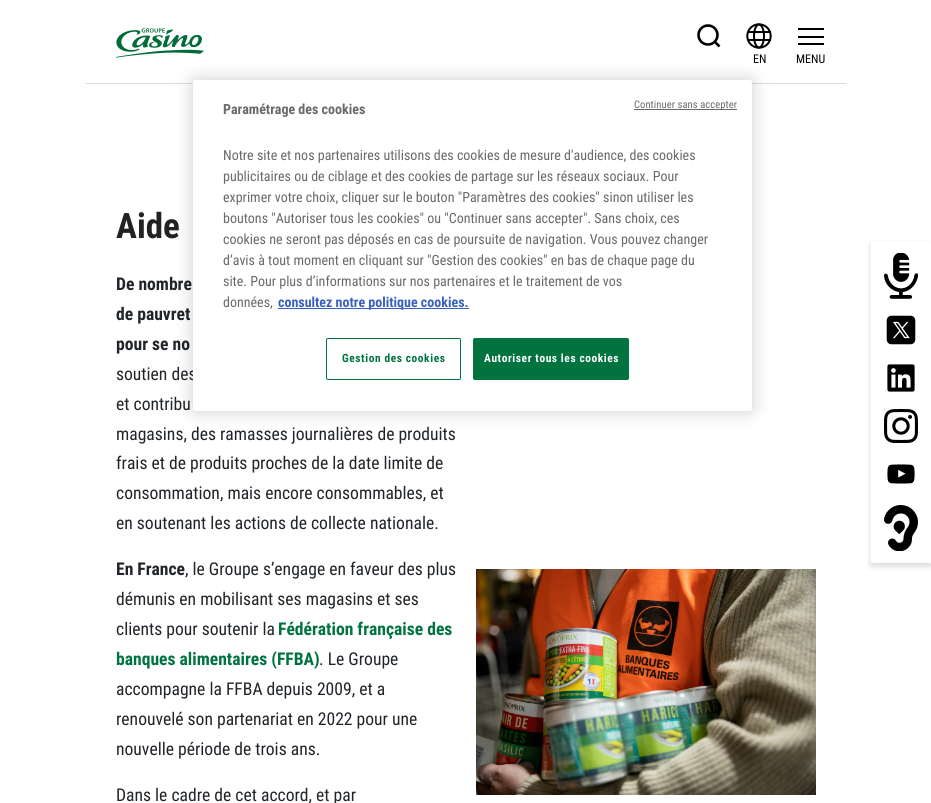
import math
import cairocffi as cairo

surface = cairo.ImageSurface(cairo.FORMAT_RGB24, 931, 803)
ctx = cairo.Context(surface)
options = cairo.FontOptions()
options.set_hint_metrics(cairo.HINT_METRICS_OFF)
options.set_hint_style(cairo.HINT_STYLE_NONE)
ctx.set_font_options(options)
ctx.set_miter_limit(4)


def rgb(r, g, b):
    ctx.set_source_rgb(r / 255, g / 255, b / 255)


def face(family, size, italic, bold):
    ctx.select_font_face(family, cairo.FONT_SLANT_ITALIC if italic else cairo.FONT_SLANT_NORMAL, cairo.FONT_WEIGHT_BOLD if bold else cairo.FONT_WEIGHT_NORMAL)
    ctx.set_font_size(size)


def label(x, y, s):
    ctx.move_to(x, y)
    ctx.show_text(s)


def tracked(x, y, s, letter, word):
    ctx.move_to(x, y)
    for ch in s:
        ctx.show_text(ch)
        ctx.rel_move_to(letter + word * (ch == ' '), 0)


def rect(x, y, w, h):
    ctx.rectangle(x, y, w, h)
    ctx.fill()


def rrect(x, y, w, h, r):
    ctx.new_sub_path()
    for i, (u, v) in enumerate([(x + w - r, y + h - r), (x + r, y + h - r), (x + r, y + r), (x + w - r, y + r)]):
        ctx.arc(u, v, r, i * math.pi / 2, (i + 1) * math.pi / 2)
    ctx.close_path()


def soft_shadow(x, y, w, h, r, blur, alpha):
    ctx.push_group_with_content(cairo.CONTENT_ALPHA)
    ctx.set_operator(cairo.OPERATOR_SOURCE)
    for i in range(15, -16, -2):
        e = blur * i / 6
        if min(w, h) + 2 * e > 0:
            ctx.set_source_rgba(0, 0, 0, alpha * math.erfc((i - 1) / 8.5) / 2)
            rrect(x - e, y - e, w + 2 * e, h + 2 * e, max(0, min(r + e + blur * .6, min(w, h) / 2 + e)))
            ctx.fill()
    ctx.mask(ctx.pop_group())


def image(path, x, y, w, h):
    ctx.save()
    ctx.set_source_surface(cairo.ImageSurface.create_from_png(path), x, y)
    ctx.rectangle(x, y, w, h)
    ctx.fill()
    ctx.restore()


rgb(255, 255, 255)
ctx.paint()
rgb(221, 221, 221)
rect(86, 83, 760, 1)
image('image0.png', 116, 28, 88, 30)
ctx.arc(708, 35, 9.5, 0, 2 * math.pi)
rgb(0, 0, 0)
ctx.set_line_width(2.6)
ctx.stroke()
ctx.new_path()
ctx.move_to(714.5, 41.5)
ctx.line_to(719.5, 46.5)
ctx.stroke()
image('image1.png', 746, 23, 26, 26)
face('Roboto Condensed', 12, 0, 0)
label(753, 63, 'EN')
rect(798, 28, 26, 2)
rect(798, 36, 26, 2)
rect(798, 43, 26, 2)
label(796, 63, 'MENU')
face('Roboto Condensed', 35, 0, 1)
rgb(34, 34, 34)
label(116, 238, 'Aide')
face('Roboto Condensed', 17.6, 0, 1)
rgb(33, 37, 41)
label(116, 290, 'De nombre')
label(116, 320, 'de pauvret')
label(116, 350, 'pour se no')
face('Roboto Condensed', 17.6, 0, 0)
label(116, 380, 'soutien des')
label(116, 410, 'et contribu')
label(116, 440, 'magasins, des ramasses journalières de produits')
label(116, 469, 'frais et de produits proches de la date limite de')
label(116, 499, 'consommation, mais encore consommables, et')
label(116, 529, 'en soutenant les actions de collecte nationale.')
face('Roboto Condensed', 17.6, 0, 1)
label(116, 575, 'En France')
face('Roboto Condensed', 17.6, 0, 0)
label(185, 575, ', le Groupe s’engage en faveur des plus')
label(116, 605, 'démunis en mobilisant ses magasins et ses')
label(116, 635, 'clients pour soutenir la')
face('Roboto Condensed', 17.6, 0, 1)
rgb(0, 115, 63)
label(278, 635, 'Fédération française des')
label(116, 665, 'banques alimentaires (FFBA)')
face('Roboto Condensed', 17.6, 0, 0)
rgb(33, 37, 41)
label(319, 665, '. Le Groupe')
label(116, 695, 'accompagne la FFBA depuis 2009, et a')
label(116, 725, 'renouvelé son partenariat en 2022 pour une')
label(116, 755, 'nouvelle période de trois ans.')
label(116, 801, 'Dans le cadre de cet accord, et par')
image('image2.png', 476, 569, 340, 226)
rgb(0, 0, 0)
soft_shadow(193, 80, 559, 331, 2.5, 9, 0.2)
rgb(255, 255, 255)
rrect(193, 80, 559, 331, 2.5)
ctx.fill()
rgb(105, 105, 105)
rect(634, 109, 103, 1)
face('Roboto Condensed', 10.5, 0, 0)
tracked(634, 108, 'Continuer sans accepter', 0.1, 0)
face('Roboto Condensed', 14, 0, 1)
label(223, 114, 'Paramétrage des cookies')
face('Roboto Condensed', 14, 0, 0)
label(223, 160, 'Notre site et nos partenaires utilisons des cookies de mesure d\'audience, des cookies')
label(223, 181, 'publicitaires ou de ciblage et des cookies de partage sur les réseaux sociaux. Pour')
label(223, 202, 'exprimer votre choix, cliquer sur le bouton "Paramètres des cookies" sinon utiliser les')
label(223, 223, 'boutons "Autoriser tous les cookies" ou "Continuer sans accepter". Sans choix, ces')
label(223, 244, 'cookies ne seront pas déposés en cas de poursuite de navigation. Vous pouvez changer')
label(223, 265, 'd’avis à tout moment en cliquant sur "Gestion des cookies" en bas de chaque page du')
label(223, 286, 'site. Pour plus d’informations sur nos partenaires et le traitement de vos')
label(223, 307, 'données,')
rgb(56, 96, 190)
rect(278, 308, 191, 1)
face('Roboto Condensed', 14, 0, 1)
label(278, 307, 'consultez notre politique cookies.')
rrect(326.5, 338.5, 134, 41, 1.5)
rgb(0, 115, 63)
ctx.set_line_width(1)
ctx.stroke()
face('Roboto Condensed', 11.4, 0, 1)
tracked(342, 362, 'Gestion des cookies', 0.6, 0)
rrect(473.5, 338.5, 155, 41, 1.5)
ctx.fill_preserve()
ctx.stroke()
rgb(255, 255, 255)
tracked(484, 362, 'Autoriser tous les cookies', 0.6, 0)
ctx.save()
ctx.set_fill_rule(cairo.FILL_RULE_EVEN_ODD)
ctx.new_path()
ctx.move_to(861, 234)
ctx.line_to(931, 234)
ctx.line_to(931, 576)
ctx.line_to(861, 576)
ctx.close_path()
ctx.move_to(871, 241)
ctx.line_to(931, 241)
ctx.line_to(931, 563)
ctx.line_to(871, 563)
ctx.close_path()
ctx.clip()
rgb(0, 0, 0)
soft_shadow(871, 244, 60, 322, 0, 3, 0.16)
ctx.restore()
image('image3.png', 884, 253, 34, 46)
image('image4.png', 886, 315, 30, 30)
image('image5.png', 887, 364, 28, 28)
image('image6.png', 884, 409, 34, 34)
image('image7.png', 887, 464, 28, 20)
image('image8.png', 884, 505, 34, 46)
surface.write_to_png('render.png')
